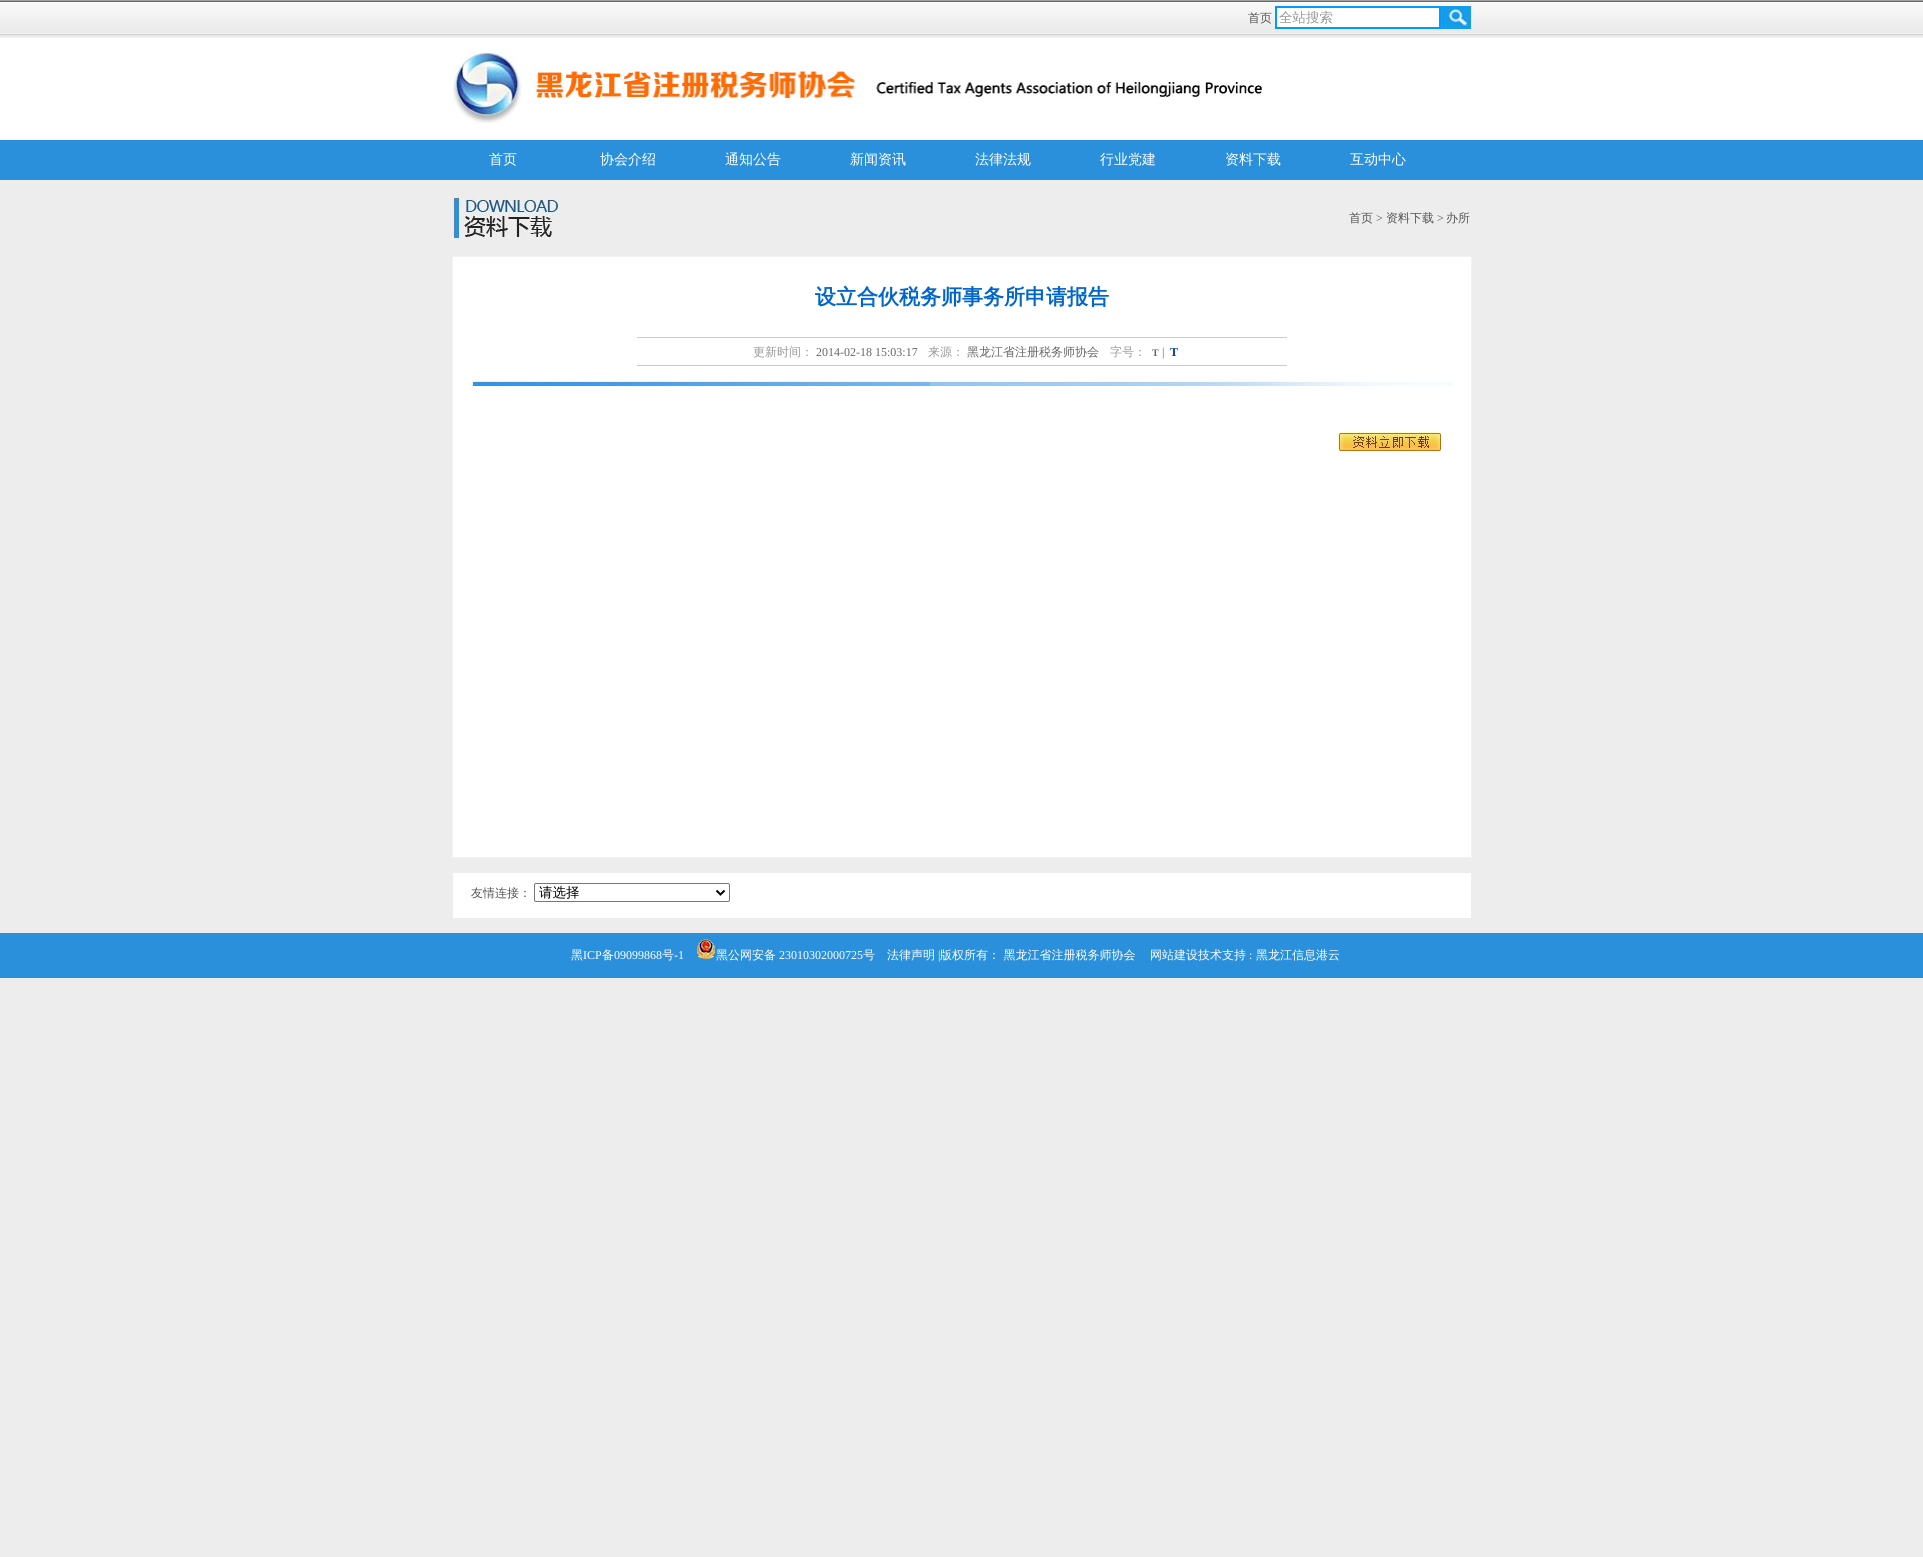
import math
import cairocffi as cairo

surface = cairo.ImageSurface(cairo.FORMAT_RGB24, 1923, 1557)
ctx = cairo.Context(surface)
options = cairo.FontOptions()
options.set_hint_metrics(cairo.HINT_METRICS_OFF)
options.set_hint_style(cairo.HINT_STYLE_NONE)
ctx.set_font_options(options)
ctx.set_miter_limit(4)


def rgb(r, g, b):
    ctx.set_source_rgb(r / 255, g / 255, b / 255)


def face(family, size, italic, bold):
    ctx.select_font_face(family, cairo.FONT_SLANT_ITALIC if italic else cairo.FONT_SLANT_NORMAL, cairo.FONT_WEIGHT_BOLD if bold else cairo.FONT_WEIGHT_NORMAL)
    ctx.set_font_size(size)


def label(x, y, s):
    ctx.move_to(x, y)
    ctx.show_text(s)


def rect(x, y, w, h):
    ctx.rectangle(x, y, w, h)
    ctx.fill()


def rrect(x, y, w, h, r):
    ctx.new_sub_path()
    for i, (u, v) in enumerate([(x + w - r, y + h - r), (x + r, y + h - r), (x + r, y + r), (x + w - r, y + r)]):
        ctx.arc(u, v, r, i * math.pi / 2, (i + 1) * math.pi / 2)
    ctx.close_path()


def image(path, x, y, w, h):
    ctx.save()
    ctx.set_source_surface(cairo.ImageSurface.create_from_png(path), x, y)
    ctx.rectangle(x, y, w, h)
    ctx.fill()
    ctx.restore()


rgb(237, 237, 237)
ctx.paint()
image('image0.png', 0, 0, 1923, 140)
image('image1.png', 453, 50, 809, 73)
face('WenQuanYi Zen Hei Medium', 12, 0, 0)
rgb(85, 85, 85)
label(1248, 22, '首页')
rgb(255, 255, 255)
ctx.rectangle(1276, 7, 164, 21)
ctx.fill_preserve()
rgb(0, 153, 255)
ctx.stroke()
face('WenQuanYi Zen Hei Medium', 13.5, 0, 0)
rgb(153, 153, 153)
label(1279, 22, '全站搜索')
image('image2.png', 1441, 6, 30, 23)
rgb(43, 144, 220)
rect(0, 140, 1923, 40)
face('WenQuanYi Zen Hei Medium', 14, 0, 0)
rgb(255, 255, 255)
label(489, 164, '首页')
label(600, 164, '协会介绍')
label(725, 164, '通知公告')
label(850, 164, '新闻资讯')
label(975, 164, '法律法规')
label(1100, 164, '行业党建')
label(1225, 164, '资料下载')
label(1350, 164, '互动中心')
image('image3.png', 453, 196, 112, 44)
face('WenQuanYi Zen Hei Medium', 12, 0, 0)
rgb(85, 85, 85)
label(1349, 222, '首页')
face('Liberation Serif', 12, 0, 0)
label(1376, 222, '>')
face('WenQuanYi Zen Hei Medium', 12, 0, 0)
label(1386, 222, '资料下载')
face('Liberation Serif', 12, 0, 0)
label(1437, 222, '>')
face('WenQuanYi Zen Hei Medium', 12, 0, 0)
label(1446, 222, '办所')
rgb(255, 255, 255)
ctx.rectangle(452.5, 256.5, 1019, 601)
ctx.fill_preserve()
rgb(242, 242, 242)
ctx.set_line_width(1)
ctx.stroke()
face('WenQuanYi Zen Hei', 21, 0, 1)
rgb(0, 102, 204)
label(815, 304, '设立合伙税务师事务所申请报告')
rgb(204, 204, 204)
rect(637, 337, 650, 1)
rect(637, 365, 650, 1)
face('WenQuanYi Zen Hei Medium', 12, 0, 0)
rgb(153, 153, 153)
label(753, 356, '更新时间：')
face('Liberation Serif', 12, 0, 0)
rgb(102, 102, 102)
label(816, 356, '2014-02-18 15:03:17')
face('WenQuanYi Zen Hei Medium', 12, 0, 0)
rgb(153, 153, 153)
label(928, 356, '来源：')
rgb(102, 102, 102)
label(967, 356, '黑龙江省注册税务师协会')
rgb(153, 153, 153)
label(1110, 356, '字号：')
face('Liberation Serif', 10, 0, 1)
rgb(102, 102, 102)
label(1152, 356, 'T')
face('Liberation Serif', 12, 0, 0)
label(1162, 356, '|')
face('Liberation Serif', 12, 0, 1)
rgb(0, 59, 166)
label(1170, 356, 'T')
image('image4.png', 472, 381, 979, 5)
image('image5.png', 1338, 432, 103, 19)
rgb(255, 255, 255)
rect(453, 873, 1018, 45)
face('WenQuanYi Zen Hei Medium', 12, 0, 0)
rgb(85, 85, 85)
label(471, 897, '友情连接：')
rrect(534.5, 883.5, 195, 18, 1.5)
rgb(118, 118, 118)
ctx.stroke()
ctx.new_path()
ctx.move_to(716.5, 890.5)
ctx.line_to(720.5, 894.5)
ctx.line_to(724.5, 890.5)
rgb(0, 0, 0)
ctx.set_line_width(2)
ctx.stroke()
face('WenQuanYi Zen Hei Medium', 13.5, 0, 0)
label(539, 897, '请选择')
rgb(43, 144, 220)
rect(0, 933, 1923, 45)
face('WenQuanYi Zen Hei Medium', 12, 0, 0)
rgb(255, 255, 255)
label(571, 959, '黑')
face('Liberation Serif', 12, 0, 0)
label(583, 959, 'ICP')
face('WenQuanYi Zen Hei Medium', 12, 0, 0)
label(602, 959, '备')
face('Liberation Serif', 12, 0, 0)
label(614, 959, '09099868')
face('WenQuanYi Zen Hei Medium', 12, 0, 0)
label(662, 959, '号')
face('Liberation Serif', 12, 0, 0)
label(674, 959, '-1')
image('image6.png', 697, 939, 18, 20)
face('WenQuanYi Zen Hei Medium', 12, 0, 0)
label(716, 959, '黑公网安备')
face('Liberation Serif', 12, 0, 0)
label(779, 959, '23010302000725')
face('WenQuanYi Zen Hei Medium', 12, 0, 0)
label(863, 959, '号')
label(887, 959, '法律声明')
face('Liberation Serif', 12, 0, 0)
label(938, 959, '|')
face('WenQuanYi Zen Hei Medium', 12, 0, 0)
label(940, 959, '版权所有： 黑龙江省注册税务师协会')
label(1150, 959, '网站建设技术支持')
face('Liberation Serif', 12, 0, 0)
label(1249, 959, ':')
face('WenQuanYi Zen Hei Medium', 12, 0, 0)
label(1256, 959, '黑龙江信息港云')
surface.write_to_png('render.png')
